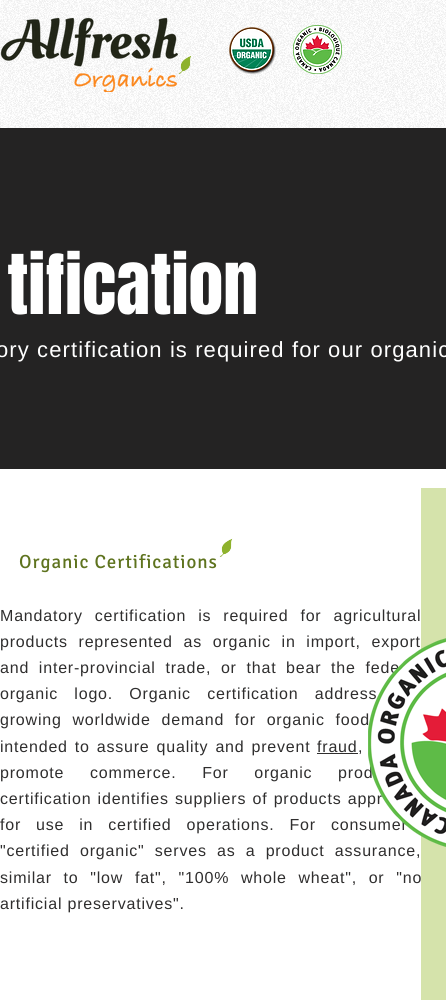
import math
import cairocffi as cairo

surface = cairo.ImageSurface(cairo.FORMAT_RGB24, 446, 1000)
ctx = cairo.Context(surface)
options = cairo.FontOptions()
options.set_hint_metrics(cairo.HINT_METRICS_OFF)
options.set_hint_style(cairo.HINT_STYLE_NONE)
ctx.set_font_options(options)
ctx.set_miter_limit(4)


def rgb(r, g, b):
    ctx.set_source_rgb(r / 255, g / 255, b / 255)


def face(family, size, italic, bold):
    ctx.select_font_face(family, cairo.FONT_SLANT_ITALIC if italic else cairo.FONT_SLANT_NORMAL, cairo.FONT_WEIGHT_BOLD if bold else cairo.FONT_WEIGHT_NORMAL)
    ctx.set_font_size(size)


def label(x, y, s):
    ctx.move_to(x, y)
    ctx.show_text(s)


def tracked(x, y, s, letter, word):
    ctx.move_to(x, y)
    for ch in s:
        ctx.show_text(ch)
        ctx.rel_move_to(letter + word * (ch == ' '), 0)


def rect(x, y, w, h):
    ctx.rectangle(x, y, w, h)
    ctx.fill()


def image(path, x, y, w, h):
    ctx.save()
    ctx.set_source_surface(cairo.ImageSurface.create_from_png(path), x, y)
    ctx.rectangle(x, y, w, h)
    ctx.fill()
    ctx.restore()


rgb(255, 255, 255)
ctx.paint()
image('image0.png', 0, 0, 446, 128)
image('image1.png', 0, 17, 178, 75)
image('image2.png', 178, 55, 14, 19)
image('image3.png', 229, 27, 47, 47)
image('image4.png', 293, 25, 49, 49)
rgb(36, 35, 35)
rect(0, 128, 446, 341)
face('Anton', 70, 0, 0)
rgb(255, 255, 255)
label(7, 314, 'tification')
face('Liberation Sans', 22, 0, 0)
tracked(-4, 357, 'ory certification is required for our organic', 1.1, 0)
rgb(213, 227, 171)
rect(421, 488, 25, 512)
face('Liberation Sans', 16, 0, 0)
rgb(47, 46, 46)
tracked(0, 647, 'products represented as organic in import, export', 0.8, 5.5)
tracked(0, 673, 'and inter-provincial trade, or that bear the fede', 0.8, 4.5)
tracked(0, 699, 'organic logo. Organic certification address', 0.8, 11)
tracked(0, 725, 'growing worldwide demand for organic food', 0.8, 5.5)
tracked(0, 778, 'promote commerce. For organic prod', 0.8, 20.5)
tracked(0, 804, 'certification identifies suppliers of products appr', 0.8, 1)
tracked(0, 830, 'for use in certified operations. For consumer', 0.8, 9.75)
tracked(0, 856, '"certified organic" serves as a product assurance,', 0.8, 5)
image('image5.png', 368, 638, 78, 209)
image('image6.png', 219, 538, 14, 19)
face('Signika', 19, 0, 0)
rgb(94, 115, 30)
tracked(19, 568, 'Organic Certifications', 0.95, 0)
face('Liberation Sans', 16, 0, 0)
rgb(47, 46, 46)
tracked(0, 621, 'Mandatory certification is required for agricultural', 0.8, 6.75)
tracked(0, 752, 'intended to assure quality and prevent', 0.8, 1.75)
tracked(317, 752, 'fraud', 0.8, 0)
tracked(358, 752, ',', 0.8, 1.75)
rect(317, 753, 41, 1)
tracked(0, 883, 'similar to "low fat", "100% whole wheat", or "no', 0.8, 6.5)
tracked(0, 909, 'artificial preservatives".', 0.8, 0)
surface.write_to_png('render.png')
